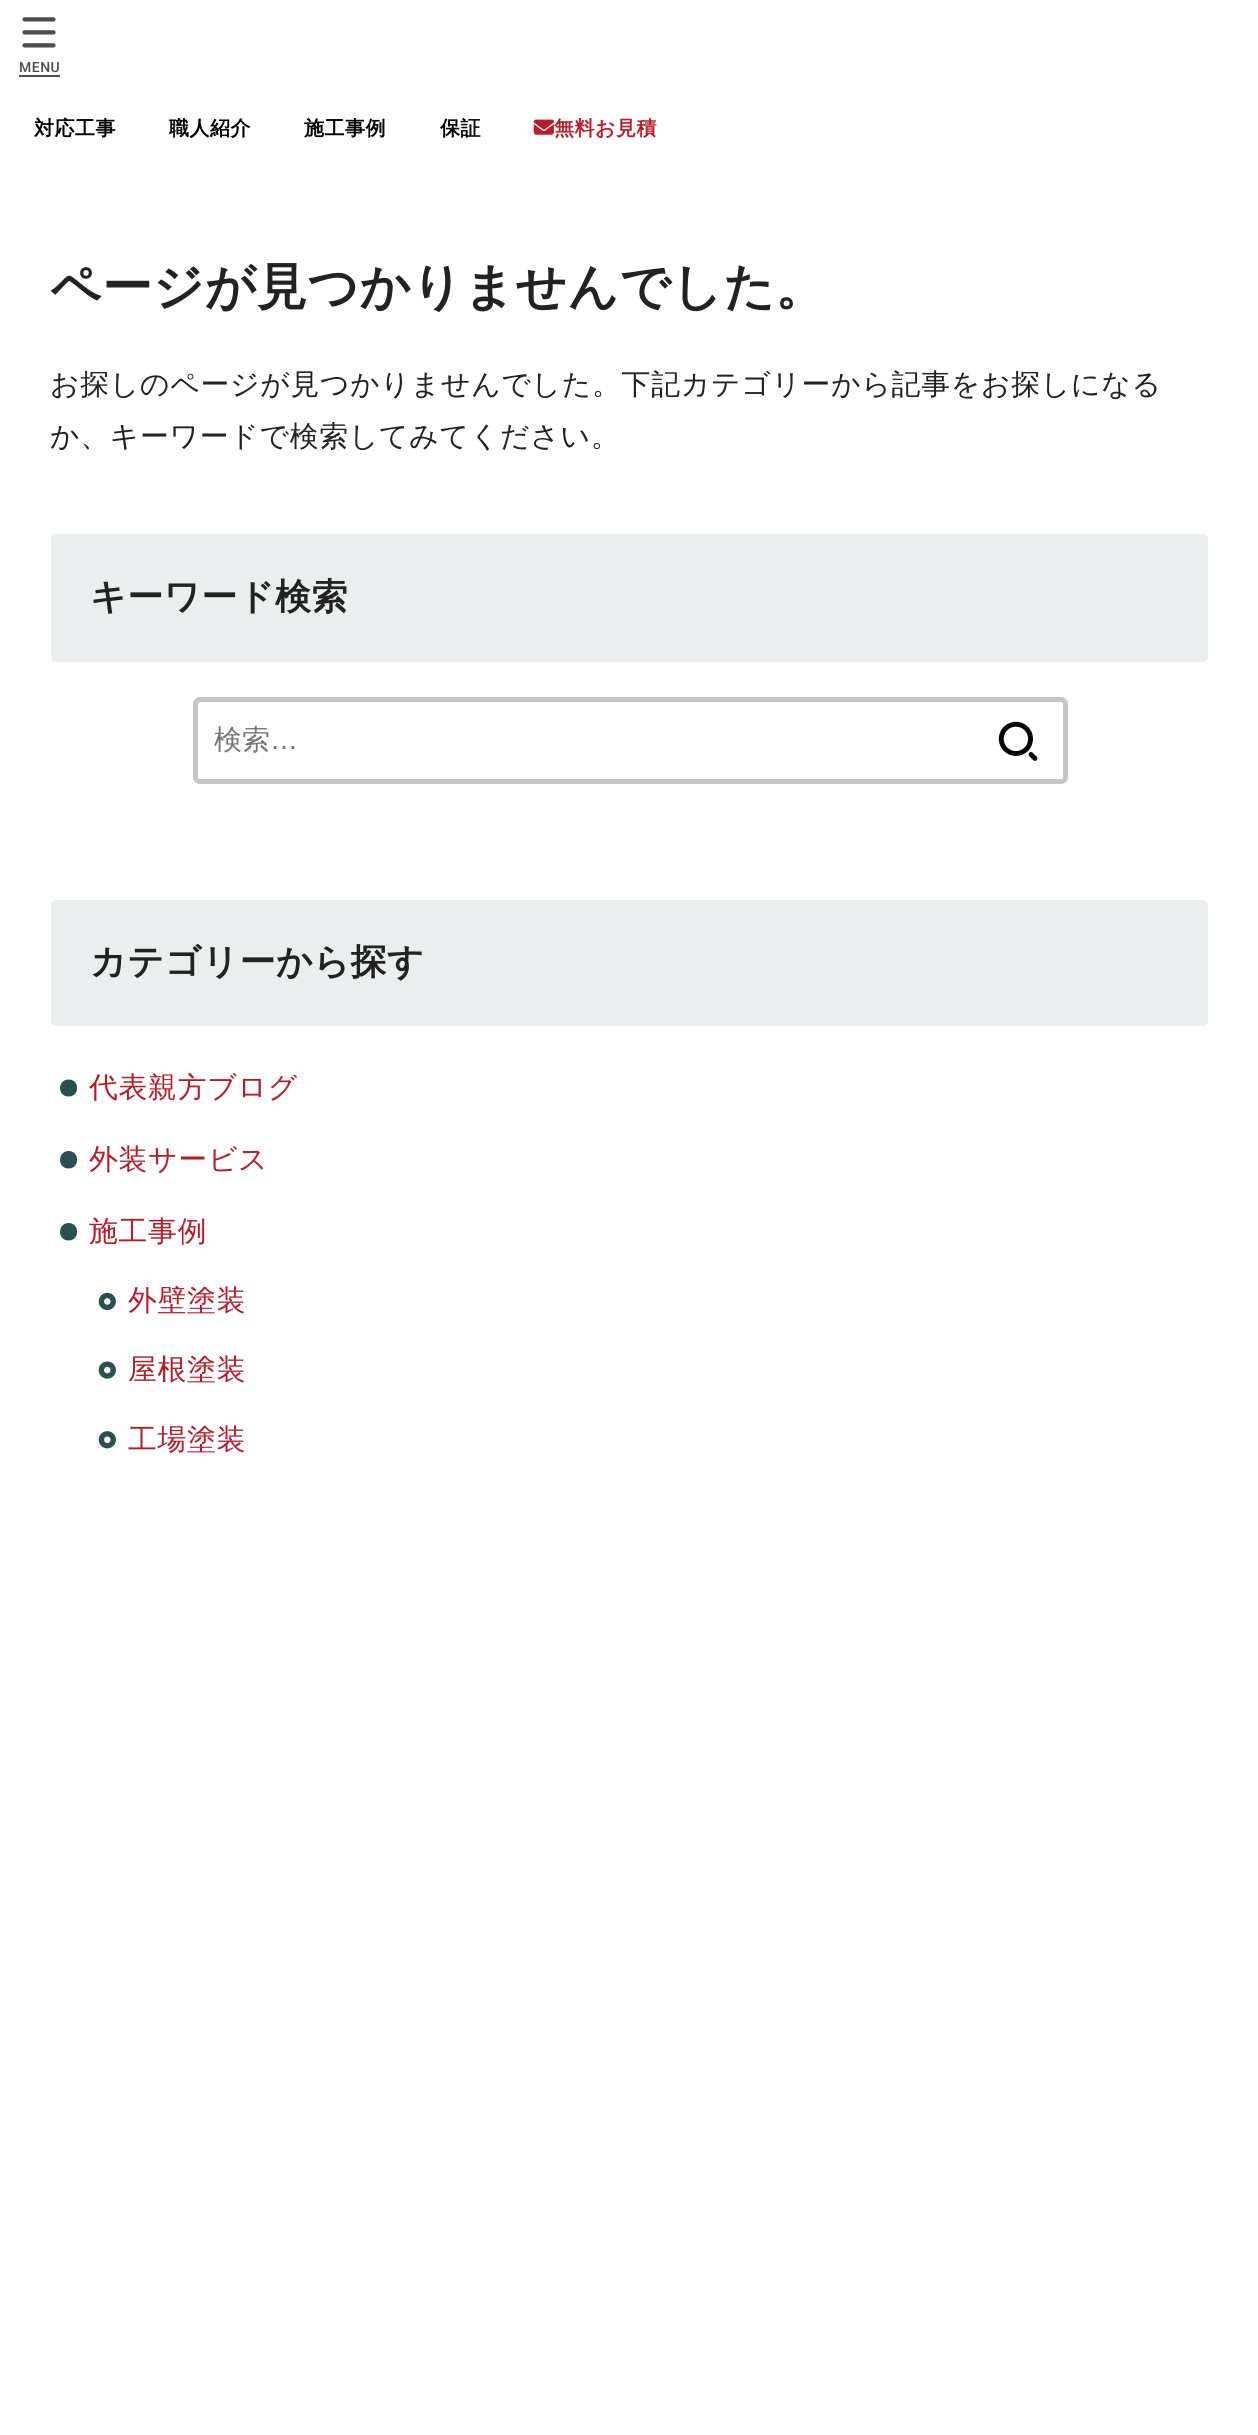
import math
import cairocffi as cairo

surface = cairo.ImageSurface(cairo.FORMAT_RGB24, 1258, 2435)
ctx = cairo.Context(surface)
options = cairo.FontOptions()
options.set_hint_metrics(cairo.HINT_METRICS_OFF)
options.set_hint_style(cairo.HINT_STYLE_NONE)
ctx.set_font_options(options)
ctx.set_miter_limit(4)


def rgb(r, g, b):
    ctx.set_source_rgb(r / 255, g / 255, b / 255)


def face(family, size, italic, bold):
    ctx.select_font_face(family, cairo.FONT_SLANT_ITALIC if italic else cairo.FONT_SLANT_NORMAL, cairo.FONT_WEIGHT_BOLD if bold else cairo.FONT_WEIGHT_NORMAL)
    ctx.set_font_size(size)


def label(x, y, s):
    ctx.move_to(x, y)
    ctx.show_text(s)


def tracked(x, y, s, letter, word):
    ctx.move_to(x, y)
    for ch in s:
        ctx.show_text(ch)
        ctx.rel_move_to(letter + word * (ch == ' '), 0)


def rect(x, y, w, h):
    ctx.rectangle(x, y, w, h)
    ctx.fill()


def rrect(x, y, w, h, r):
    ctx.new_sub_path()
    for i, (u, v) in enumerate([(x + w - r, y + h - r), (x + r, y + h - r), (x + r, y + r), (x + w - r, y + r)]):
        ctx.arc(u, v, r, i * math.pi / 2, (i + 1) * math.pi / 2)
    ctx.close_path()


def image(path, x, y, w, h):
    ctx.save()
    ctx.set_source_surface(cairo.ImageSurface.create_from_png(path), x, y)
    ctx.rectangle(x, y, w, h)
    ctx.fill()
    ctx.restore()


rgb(255, 255, 255)
ctx.paint()
image('image0.png', 22, 17, 34, 31)
face('Roboto Medium', 14, 0, 0)
rgb(77, 77, 77)
tracked(19, 72, 'MENU', 0.5, 0)
rect(19, 75, 41, 2)
face('WenQuanYi Zen Hei', 20, 0, 1)
rgb(0, 0, 0)
tracked(34, 135, '対応工事', 0.5, 0)
tracked(169, 135, '職人紹介', 0.5, 0)
tracked(304, 135, '施工事例', 0.5, 0)
tracked(440, 135, '保証', 0.5, 0)
image('image1.png', 533, 119, 21, 16)
rgb(184, 28, 43)
tracked(554, 135, '無料お見積', 0.5, 0)
face('WenQuanYi Zen Hei', 50.3, 0, 1)
rgb(34, 34, 34)
tracked(50, 304, 'ページが見つかりませんでした。', 0.5, 0)
face('WenQuanYi Zen Hei Medium', 28.85, 0, 0)
tracked(50, 394, 'お探しのページが見つかりませんでした。下記カテゴリーから記事をお探しになる', 0.7, 0)
tracked(50, 446, 'か、キーワードで検索してみてください。', 0.7, 0)
rgb(234, 238, 238)
rrect(51, 534, 1157, 128, 5)
ctx.fill()
face('WenQuanYi Zen Hei', 36, 0, 1)
rgb(34, 34, 34)
tracked(90, 609, 'キーワード検索', 0.5, 0)
rrect(195.5, 699.5, 870, 82, 4.5)
rgb(198, 198, 198)
ctx.set_line_width(5)
ctx.stroke()
face('WenQuanYi Zen Hei Medium', 28, 0, 0)
rgb(117, 117, 117)
label(214, 749, '検索')
face('Liberation Sans', 28, 0, 0)
label(270, 749, '…')
image('image2.png', 998, 721, 40, 40)
rgb(234, 238, 238)
rrect(51, 900, 1157, 126, 5)
ctx.fill()
face('WenQuanYi Zen Hei', 36, 0, 1)
rgb(34, 34, 34)
tracked(90, 974, 'カテゴリーから探す', 0.5, 0)
rgb(44, 79, 84)
ctx.new_path()
ctx.move_to(68.5, 1096.5)
ctx.curve_to(80, 1096.5, 80, 1079.5, 68.5, 1079.5)
ctx.curve_to(57.5, 1079.5, 57, 1096.5, 68.5, 1096.5)
ctx.close_path()
ctx.fill()
face('WenQuanYi Zen Hei Medium', 28.85, 0, 0)
rgb(184, 28, 43)
tracked(89, 1097, '代表親方ブログ', 0.7, 0)
rgb(44, 79, 84)
ctx.new_path()
ctx.move_to(68.5, 1168.5)
ctx.curve_to(80, 1168.5, 80, 1151, 68.5, 1151)
ctx.curve_to(57.5, 1151, 57, 1168.5, 68.5, 1168.5)
ctx.close_path()
ctx.fill()
rgb(184, 28, 43)
tracked(89, 1169, '外装サービス', 0.7, 0)
rgb(44, 79, 84)
ctx.new_path()
ctx.move_to(68.5, 1240.5)
ctx.curve_to(80, 1240.5, 80, 1223, 68.5, 1223)
ctx.curve_to(57.5, 1223, 57, 1240.5, 68.5, 1240.5)
ctx.close_path()
ctx.fill()
rgb(184, 28, 43)
tracked(89, 1241, '施工事例', 0.7, 0)
image('image3.png', 98, 1292, 18, 19)
tracked(128, 1310, '外壁塗装', 0.7, 0)
image('image4.png', 98, 1361, 18, 18)
tracked(128, 1379, '屋根塗装', 0.7, 0)
image('image5.png', 98, 1431, 18, 18)
tracked(128, 1449, '工場塗装', 0.7, 0)
surface.write_to_png('render.png')
